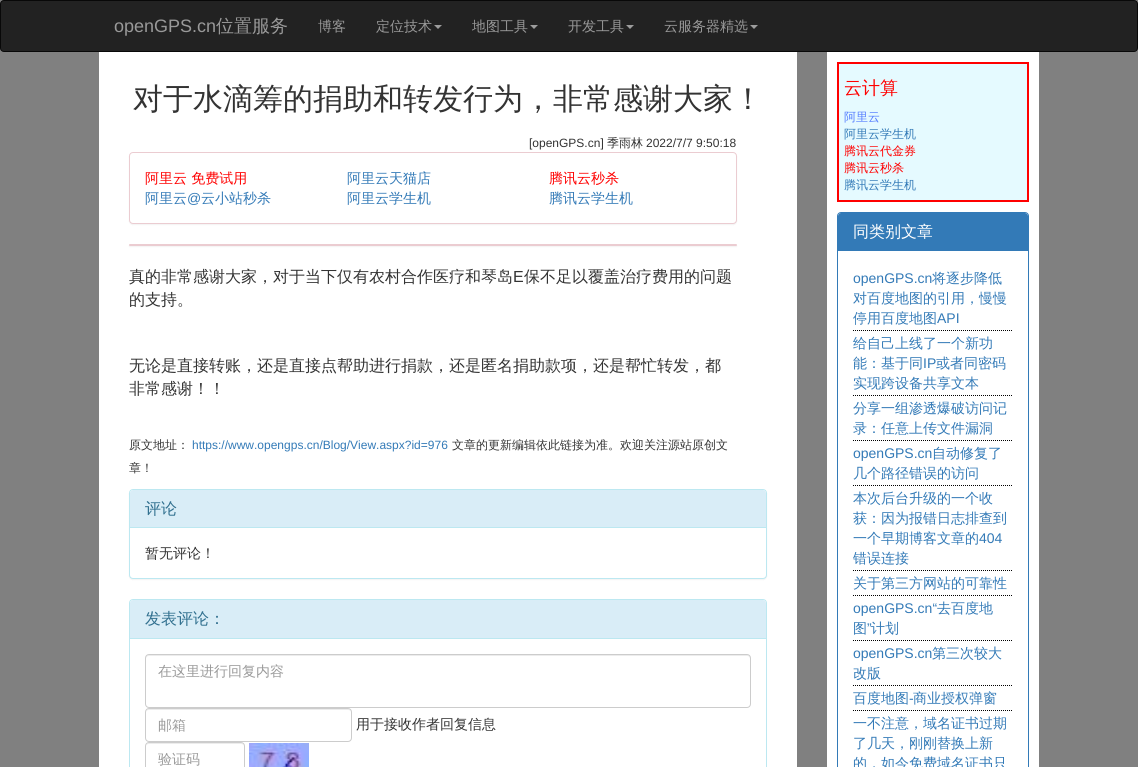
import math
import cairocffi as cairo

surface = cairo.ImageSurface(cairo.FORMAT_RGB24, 1138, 767)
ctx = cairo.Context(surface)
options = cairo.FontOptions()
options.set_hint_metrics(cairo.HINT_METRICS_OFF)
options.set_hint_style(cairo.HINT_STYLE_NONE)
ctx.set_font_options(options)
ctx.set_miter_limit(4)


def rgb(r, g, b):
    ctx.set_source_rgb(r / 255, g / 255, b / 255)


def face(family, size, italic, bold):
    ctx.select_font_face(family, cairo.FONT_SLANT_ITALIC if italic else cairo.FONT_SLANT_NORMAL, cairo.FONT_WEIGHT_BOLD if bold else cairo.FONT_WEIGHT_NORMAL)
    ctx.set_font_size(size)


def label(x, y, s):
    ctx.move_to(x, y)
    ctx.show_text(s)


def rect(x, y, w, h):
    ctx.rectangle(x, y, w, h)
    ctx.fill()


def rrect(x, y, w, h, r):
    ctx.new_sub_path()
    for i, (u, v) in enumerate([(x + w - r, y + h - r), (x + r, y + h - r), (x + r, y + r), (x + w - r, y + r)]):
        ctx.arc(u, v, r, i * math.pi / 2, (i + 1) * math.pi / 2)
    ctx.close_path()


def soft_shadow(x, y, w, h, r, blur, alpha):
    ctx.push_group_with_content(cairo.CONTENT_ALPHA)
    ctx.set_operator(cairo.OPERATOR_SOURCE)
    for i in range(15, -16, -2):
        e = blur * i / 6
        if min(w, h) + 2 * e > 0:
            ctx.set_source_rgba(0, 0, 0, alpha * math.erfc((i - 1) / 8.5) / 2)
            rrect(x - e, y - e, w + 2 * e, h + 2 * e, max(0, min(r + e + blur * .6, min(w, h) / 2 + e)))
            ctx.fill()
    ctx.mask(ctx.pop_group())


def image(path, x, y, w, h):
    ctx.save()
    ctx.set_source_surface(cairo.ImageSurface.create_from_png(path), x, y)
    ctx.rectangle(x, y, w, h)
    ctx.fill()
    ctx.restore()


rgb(128, 128, 128)
ctx.paint()
rgb(34, 34, 34)
rrect(0.5, 0.5, 1137, 51, 3.5)
ctx.fill_preserve()
rgb(8, 8, 8)
ctx.set_line_width(1)
ctx.stroke()
face('Liberation Sans', 18, 0, 0)
rgb(153, 153, 153)
label(114, 32, 'openGPS.cn')
face('WenQuanYi Zen Hei Medium', 18, 0, 0)
label(216, 32, '位置服务')
face('WenQuanYi Zen Hei Medium', 14, 0, 0)
label(318, 31, '博客')
label(376, 31, '定位技术')
rgb(157, 157, 157)
ctx.new_path()
ctx.move_to(434, 25)
ctx.line_to(442, 25)
ctx.line_to(438, 29)
ctx.close_path()
ctx.fill()
rgb(153, 153, 153)
label(472, 31, '地图工具')
rgb(157, 157, 157)
ctx.new_path()
ctx.move_to(530, 25)
ctx.line_to(538, 25)
ctx.line_to(534, 29)
ctx.close_path()
ctx.fill()
rgb(153, 153, 153)
label(568, 31, '开发工具')
rgb(157, 157, 157)
ctx.new_path()
ctx.move_to(626, 25)
ctx.line_to(634, 25)
ctx.line_to(630, 29)
ctx.close_path()
ctx.fill()
rgb(153, 153, 153)
label(664, 31, '云服务器精选')
rgb(157, 157, 157)
ctx.new_path()
ctx.move_to(750, 25)
ctx.line_to(758, 25)
ctx.line_to(754, 29)
ctx.close_path()
ctx.fill()
rgb(255, 255, 255)
rect(99, 52, 698, 715)
face('WenQuanYi Zen Hei Medium', 30, 0, 0)
rgb(51, 51, 51)
label(133, 109, '对于水滴筹的捐助和转发行为，非常感谢大家！')
face('Liberation Sans', 12, 0, 0)
label(529, 147, '[openGPS.cn]')
face('WenQuanYi Zen Hei Medium', 12, 0, 0)
label(607, 147, '季雨林')
face('Liberation Sans', 12, 0, 0)
label(646, 147, '2022/7/7 9:50:18')
rgb(0, 0, 0)
soft_shadow(129, 153, 608, 72, 4, 0.5, 0.05)
rgb(255, 255, 255)
rrect(129.5, 152.5, 607, 71, 3.5)
ctx.fill_preserve()
rgb(235, 204, 209)
ctx.stroke()
face('WenQuanYi Zen Hei Medium', 14, 0, 0)
rgb(255, 0, 0)
label(145, 183, '阿里云 免费试用')
rgb(51, 122, 183)
label(145, 203, '阿里云')
face('Liberation Sans', 14, 0, 0)
label(187, 203, '@')
face('WenQuanYi Zen Hei Medium', 14, 0, 0)
label(201, 203, '云小站秒杀')
label(347, 183, '阿里云天猫店')
label(347, 203, '阿里云学生机')
rgb(255, 0, 0)
label(549, 183, '腾讯云秒杀')
rgb(51, 122, 183)
label(549, 203, '腾讯云学生机')
rgb(0, 0, 0)
soft_shadow(129, 245, 608, 2, 1, 0.5, 0.05)
rgb(235, 204, 209)
rrect(129, 244, 608, 2, 1)
ctx.fill()
face('WenQuanYi Zen Hei Medium', 16, 0, 0)
rgb(51, 51, 51)
label(129, 282, '真的非常感谢大家，对于当下仅有农村合作医疗和琴岛')
face('Liberation Sans', 16, 0, 0)
label(513, 282, 'E')
face('WenQuanYi Zen Hei Medium', 16, 0, 0)
label(524, 282, '保不足以覆盖治疗费用的问题')
label(129, 305, '的支持。')
label(129, 371, '无论是直接转账，还是直接点帮助进行捐款，还是匿名捐助款项，还是帮忙转发，都')
label(129, 394, '非常感谢！！')
face('WenQuanYi Zen Hei Medium', 12, 0, 0)
label(129, 449, '原文地址：')
face('Liberation Sans', 12, 0, 0)
rgb(51, 122, 183)
label(192, 449, 'https://www.opengps.cn/Blog/View.aspx?id=976')
face('WenQuanYi Zen Hei Medium', 12, 0, 0)
rgb(51, 51, 51)
label(452, 449, '文章的更新编辑依此链接为准。欢迎关注源站原创文')
label(129, 472, '章！')
rgb(0, 0, 0)
soft_shadow(129, 490, 638, 90, 4, 0.5, 0.05)
rgb(255, 255, 255)
rrect(129.5, 489.5, 637, 89, 3.5)
ctx.fill_preserve()
rgb(188, 232, 241)
ctx.stroke()
rgb(217, 237, 247)
ctx.new_path()
ctx.move_to(133, 490)
ctx.line_to(763, 490)
ctx.curve_to(764.5, 490, 766, 491.5, 766, 493)
ctx.line_to(766, 528)
ctx.line_to(130, 528)
ctx.line_to(130, 493)
ctx.curve_to(130, 491.5, 131.5, 490, 133, 490)
ctx.close_path()
ctx.fill()
rgb(188, 232, 241)
rect(130, 527, 636, 1)
face('WenQuanYi Zen Hei Medium', 16, 0, 0)
rgb(49, 112, 143)
label(145, 514, '评论')
face('WenQuanYi Zen Hei Medium', 14, 0, 0)
rgb(51, 51, 51)
label(145, 558, '暂无评论！')
rrect(129.5, 599.5, 637, 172, 3.5)
rgb(188, 232, 241)
ctx.stroke()
rgb(217, 237, 247)
ctx.new_path()
ctx.move_to(133, 600)
ctx.line_to(763, 600)
ctx.curve_to(764.5, 600, 766, 601.5, 766, 603)
ctx.line_to(766, 639)
ctx.line_to(130, 639)
ctx.line_to(130, 603)
ctx.curve_to(130, 601.5, 131.5, 600, 133, 600)
ctx.close_path()
ctx.fill()
rgb(188, 232, 241)
rect(130, 638, 636, 1)
face('WenQuanYi Zen Hei Medium', 16, 0, 0)
rgb(49, 112, 143)
label(145, 624, '发表评论：')
rgb(236, 236, 236)
ctx.new_path()
ctx.move_to(149, 656)
ctx.line_to(747, 656)
ctx.curve_to(749, 656, 750, 657, 750, 659)
ctx.line_to(750, 658)
ctx.curve_to(750, 656, 749, 655, 747, 655)
ctx.line_to(149, 655)
ctx.curve_to(147, 655, 146, 656, 146, 658)
ctx.line_to(146, 659)
ctx.curve_to(146, 657, 147, 656, 149, 656)
ctx.close_path()
ctx.fill()
rrect(145.5, 654.5, 605, 53, 3.5)
rgb(204, 204, 204)
ctx.stroke()
face('WenQuanYi Zen Hei Medium', 14, 0, 0)
rgb(153, 153, 153)
label(158, 676, '在这里进行回复内容')
rgb(236, 236, 236)
ctx.new_path()
ctx.move_to(149, 710)
ctx.line_to(348, 710)
ctx.curve_to(350, 710, 351, 711, 351, 713)
ctx.curve_to(351, 711, 350, 709, 348, 709)
ctx.line_to(149, 709)
ctx.curve_to(147, 709, 146, 711, 146, 713)
ctx.curve_to(146, 711, 147, 710, 149, 710)
ctx.close_path()
ctx.fill()
rrect(145.5, 708.5, 206, 33, 3.5)
rgb(204, 204, 204)
ctx.stroke()
rgb(153, 153, 153)
label(158, 730, '邮箱')
rgb(51, 51, 51)
label(356, 729, '用于接收作者回复信息')
rgb(236, 236, 236)
ctx.new_path()
ctx.move_to(149, 744)
ctx.line_to(241, 744)
ctx.curve_to(243, 744, 244, 745, 244, 747)
ctx.curve_to(244, 739, 229, 743, 226, 743)
ctx.line_to(164, 743)
ctx.curve_to(161, 743, 146, 739, 146, 747)
ctx.curve_to(146, 745, 147, 744, 149, 744)
ctx.close_path()
ctx.fill()
rrect(145.5, 742.5, 99, 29, 3.5)
rgb(204, 204, 204)
ctx.stroke()
rgb(153, 153, 153)
label(158, 764, '验证码')
image('image0.png', 249, 743, 60, 24)
rgb(255, 255, 255)
rect(827, 52, 212, 715)
rgb(229, 250, 255)
ctx.rectangle(838, 63, 190, 138)
ctx.fill_preserve()
rgb(255, 0, 0)
ctx.set_line_width(2)
ctx.stroke()
face('WenQuanYi Zen Hei Medium', 18, 0, 0)
label(844, 94, '云计算')
face('WenQuanYi Zen Hei Medium', 12, 0, 0)
rgb(85, 125, 255)
label(844, 121, '阿里云')
rgb(51, 122, 183)
label(844, 138, '阿里云学生机')
rgb(255, 0, 0)
label(844, 155, '腾讯云代金券')
label(844, 172, '腾讯云秒杀')
rgb(51, 122, 183)
label(844, 189, '腾讯云学生机')
rrect(837.5, 212.5, 191, 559, 3.5)
ctx.set_line_width(1)
ctx.stroke()
ctx.new_path()
ctx.move_to(841, 213)
ctx.line_to(1025, 213)
ctx.curve_to(1026.5, 213, 1028, 214.5, 1028, 216)
ctx.line_to(1028, 251)
ctx.line_to(838, 251)
ctx.line_to(838, 216)
ctx.curve_to(838, 214.5, 839.5, 213, 841, 213)
ctx.close_path()
ctx.fill()
face('WenQuanYi Zen Hei Medium', 16, 0, 0)
rgb(255, 255, 255)
label(853, 237, '同类别文章')
ctx.new_path()
ctx.move_to(853, 330.5)
ctx.line_to(1013, 330.5)
rgb(0, 0, 0)
ctx.set_dash([1, 1])
ctx.stroke()
face('Liberation Sans', 14, 0, 0)
rgb(51, 122, 183)
label(853, 283, 'openGPS.cn')
face('WenQuanYi Zen Hei Medium', 14, 0, 0)
label(932, 283, '将逐步降低')
label(853, 303, '对百度地图的引用，慢慢')
label(853, 323, '停用百度地图')
face('Liberation Sans', 14, 0, 0)
label(937, 323, 'API')
ctx.new_path()
ctx.move_to(853, 395.5)
ctx.line_to(1013, 395.5)
rgb(0, 0, 0)
ctx.stroke()
face('WenQuanYi Zen Hei Medium', 14, 0, 0)
rgb(51, 122, 183)
label(853, 348, '给自己上线了一个新功')
label(853, 368, '能：基于同')
face('Liberation Sans', 14, 0, 0)
label(923, 368, 'IP')
face('WenQuanYi Zen Hei Medium', 14, 0, 0)
label(936, 368, '或者同密码')
label(853, 388, '实现跨设备共享文本')
ctx.new_path()
ctx.move_to(853, 440.5)
ctx.line_to(1013, 440.5)
rgb(0, 0, 0)
ctx.stroke()
rgb(51, 122, 183)
label(853, 413, '分享一组渗透爆破访问记')
label(853, 433, '录：任意上传文件漏洞')
ctx.new_path()
ctx.move_to(853, 485.5)
ctx.line_to(1013, 485.5)
rgb(0, 0, 0)
ctx.stroke()
face('Liberation Sans', 14, 0, 0)
rgb(51, 122, 183)
label(853, 458, 'openGPS.cn')
face('WenQuanYi Zen Hei Medium', 14, 0, 0)
label(932, 458, '自动修复了')
label(853, 478, '几个路径错误的访问')
ctx.new_path()
ctx.move_to(853, 570.5)
ctx.line_to(1013, 570.5)
rgb(0, 0, 0)
ctx.stroke()
rgb(51, 122, 183)
label(853, 503, '本次后台升级的一个收')
label(853, 523, '获：因为报错日志排查到')
label(853, 543, '一个早期博客文章的')
face('Liberation Sans', 14, 0, 0)
label(979, 543, '404')
face('WenQuanYi Zen Hei Medium', 14, 0, 0)
label(853, 563, '错误连接')
ctx.new_path()
ctx.move_to(853, 595.5)
ctx.line_to(1013, 595.5)
rgb(0, 0, 0)
ctx.stroke()
rgb(51, 122, 183)
label(853, 588, '关于第三方网站的可靠性')
ctx.new_path()
ctx.move_to(853, 640.5)
ctx.line_to(1013, 640.5)
rgb(0, 0, 0)
ctx.stroke()
face('Liberation Sans', 14, 0, 0)
rgb(51, 122, 183)
label(853, 613, 'openGPS.cn“')
face('WenQuanYi Zen Hei Medium', 14, 0, 0)
label(937, 613, '去百度地')
label(853, 633, '图')
face('Liberation Sans', 14, 0, 0)
label(867, 633, '”')
face('WenQuanYi Zen Hei Medium', 14, 0, 0)
label(871, 633, '计划')
ctx.new_path()
ctx.move_to(853, 685.5)
ctx.line_to(1013, 685.5)
rgb(0, 0, 0)
ctx.stroke()
face('Liberation Sans', 14, 0, 0)
rgb(51, 122, 183)
label(853, 658, 'openGPS.cn')
face('WenQuanYi Zen Hei Medium', 14, 0, 0)
label(932, 658, '第三次较大')
label(853, 678, '改版')
ctx.new_path()
ctx.move_to(853, 710.5)
ctx.line_to(1013, 710.5)
rgb(0, 0, 0)
ctx.stroke()
rgb(51, 122, 183)
label(853, 703, '百度地图')
face('Liberation Sans', 14, 0, 0)
label(909, 703, '-')
face('WenQuanYi Zen Hei Medium', 14, 0, 0)
label(913, 703, '商业授权弹窗')
label(853, 728, '一不注意，域名证书过期')
label(853, 748, '了几天，刚刚替换上新')
label(853, 768, '的，如今免费域名证书只')
surface.write_to_png('render.png')
